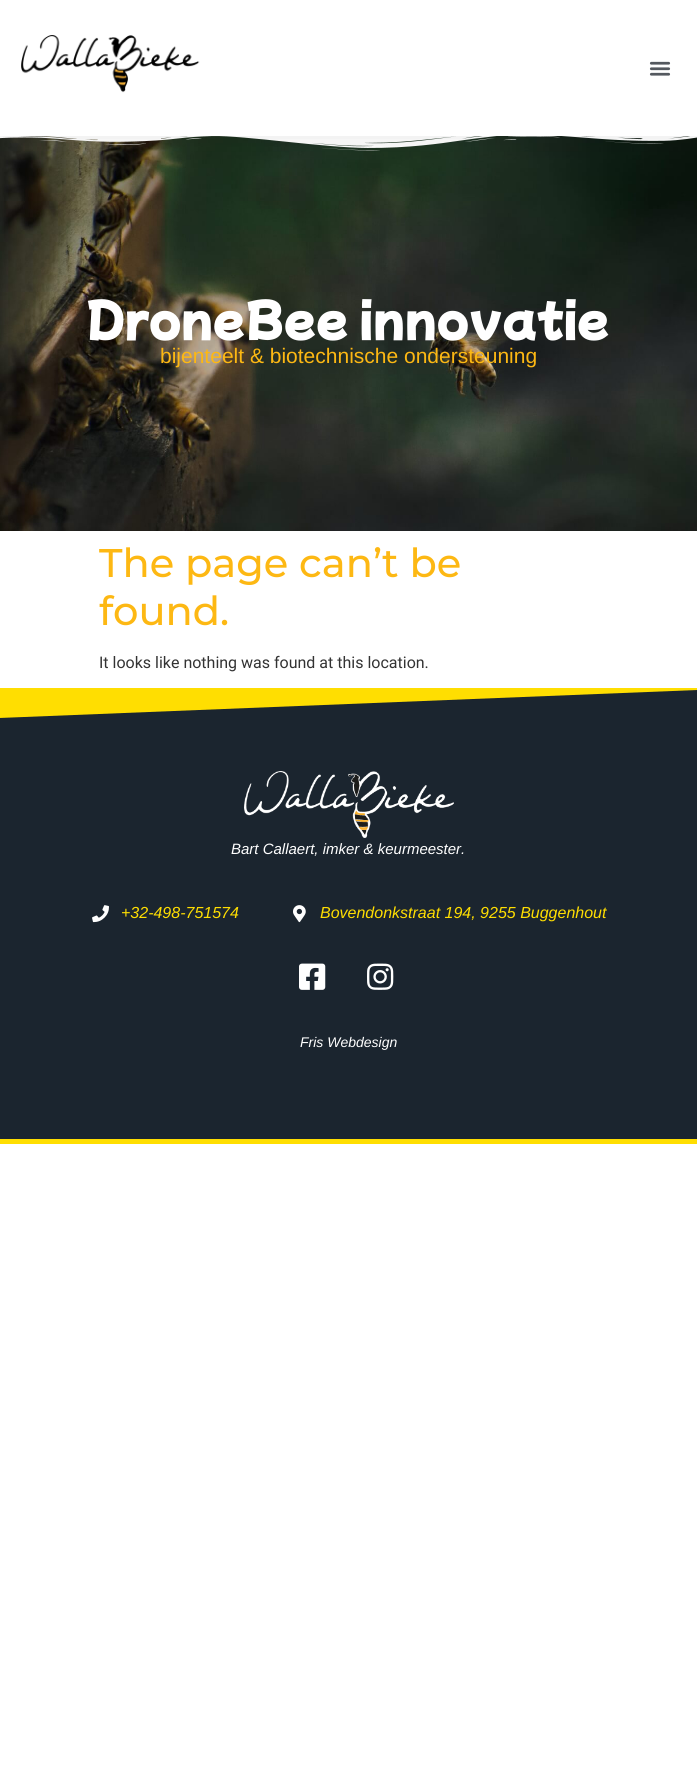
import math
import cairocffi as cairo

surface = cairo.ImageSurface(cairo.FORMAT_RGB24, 697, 1792)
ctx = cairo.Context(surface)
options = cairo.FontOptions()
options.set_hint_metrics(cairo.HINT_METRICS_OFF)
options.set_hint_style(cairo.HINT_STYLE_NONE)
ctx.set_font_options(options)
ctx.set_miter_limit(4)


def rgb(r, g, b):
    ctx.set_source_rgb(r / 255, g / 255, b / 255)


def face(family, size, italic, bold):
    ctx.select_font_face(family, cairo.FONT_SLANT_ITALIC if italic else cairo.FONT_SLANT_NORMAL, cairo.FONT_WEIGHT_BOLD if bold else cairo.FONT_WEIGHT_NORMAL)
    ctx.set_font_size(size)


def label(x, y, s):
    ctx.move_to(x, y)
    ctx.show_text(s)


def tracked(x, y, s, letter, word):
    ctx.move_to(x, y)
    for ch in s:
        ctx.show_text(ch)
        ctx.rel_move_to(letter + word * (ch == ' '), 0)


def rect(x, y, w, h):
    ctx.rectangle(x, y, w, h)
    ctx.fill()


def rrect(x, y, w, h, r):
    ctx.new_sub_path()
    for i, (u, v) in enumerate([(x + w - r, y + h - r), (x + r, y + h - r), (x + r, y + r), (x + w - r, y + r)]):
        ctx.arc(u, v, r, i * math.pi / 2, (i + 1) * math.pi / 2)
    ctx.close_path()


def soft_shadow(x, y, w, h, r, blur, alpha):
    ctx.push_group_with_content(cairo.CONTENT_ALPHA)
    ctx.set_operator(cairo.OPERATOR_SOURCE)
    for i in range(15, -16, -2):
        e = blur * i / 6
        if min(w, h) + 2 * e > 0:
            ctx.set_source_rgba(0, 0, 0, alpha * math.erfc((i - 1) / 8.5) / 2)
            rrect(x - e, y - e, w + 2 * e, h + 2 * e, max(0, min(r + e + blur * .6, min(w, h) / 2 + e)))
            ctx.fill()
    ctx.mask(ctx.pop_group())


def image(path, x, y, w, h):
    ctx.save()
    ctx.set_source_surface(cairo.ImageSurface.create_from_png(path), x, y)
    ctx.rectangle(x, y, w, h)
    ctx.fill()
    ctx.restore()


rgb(255, 255, 255)
ctx.paint()
image('image2.png', 0, 136, 697, 395)
image('image3.png', 0, 136, 697, 15)
rgb(0, 0, 0)
soft_shadow(0, 0, 697, 136, 0, 19, 0.1)
rgb(255, 255, 255)
rect(0, 0, 697, 136)
image('image0.png', 21, 35, 179, 58)
image('image1.png', 649, 61, 22, 15)
face('Mochiy Pop One', 45, 0, 1)
tracked(88, 337, 'DroneBee innovatie', 1.25, 0)
face('Liberation Sans', 21, 0, 0)
rgb(253, 184, 19)
label(160, 363, 'bijenteelt & biotechnische ondersteuning')
face('Montserrat Medium', 40, 0, 0)
label(99, 577, 'The page can’t be')
label(99, 625, 'found.')
face('Roboto', 16, 0, 0)
rgb(51, 51, 51)
label(99, 668, 'It looks like nothing was found at this location.')
rgb(27, 37, 47)
rect(0, 690, 697, 449)
rgb(255, 222, 1)
rect(0, 1139, 697, 5)
ctx.new_path()
ctx.move_to(697, 690)
ctx.line_to(697, 688)
ctx.line_to(-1, 688)
ctx.line_to(-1, 718)
ctx.close_path()
ctx.fill()
image('image4.png', 244, 771, 210, 67)
face('Liberation Sans', 15, 1, 0)
rgb(255, 255, 255)
label(231, 854, 'Bart Callaert, imker & keurmeester.')
image('image5.png', 92, 905, 17, 18)
face('Liberation Sans', 16, 1, 0)
rgb(255, 222, 1)
label(121, 918, '+32-498-751574')
image('image6.png', 293, 905, 13, 18)
label(320, 918, 'Bovendonkstraat 194, 9255 Buggenhout')
image('image7.png', 299, 963, 27, 27)
image('image8.png', 367, 963, 27, 27)
face('Liberation Sans', 14, 1, 0)
rgb(255, 255, 255)
label(300, 1047, 'Fris Webdesign')
surface.write_to_png('render.png')
